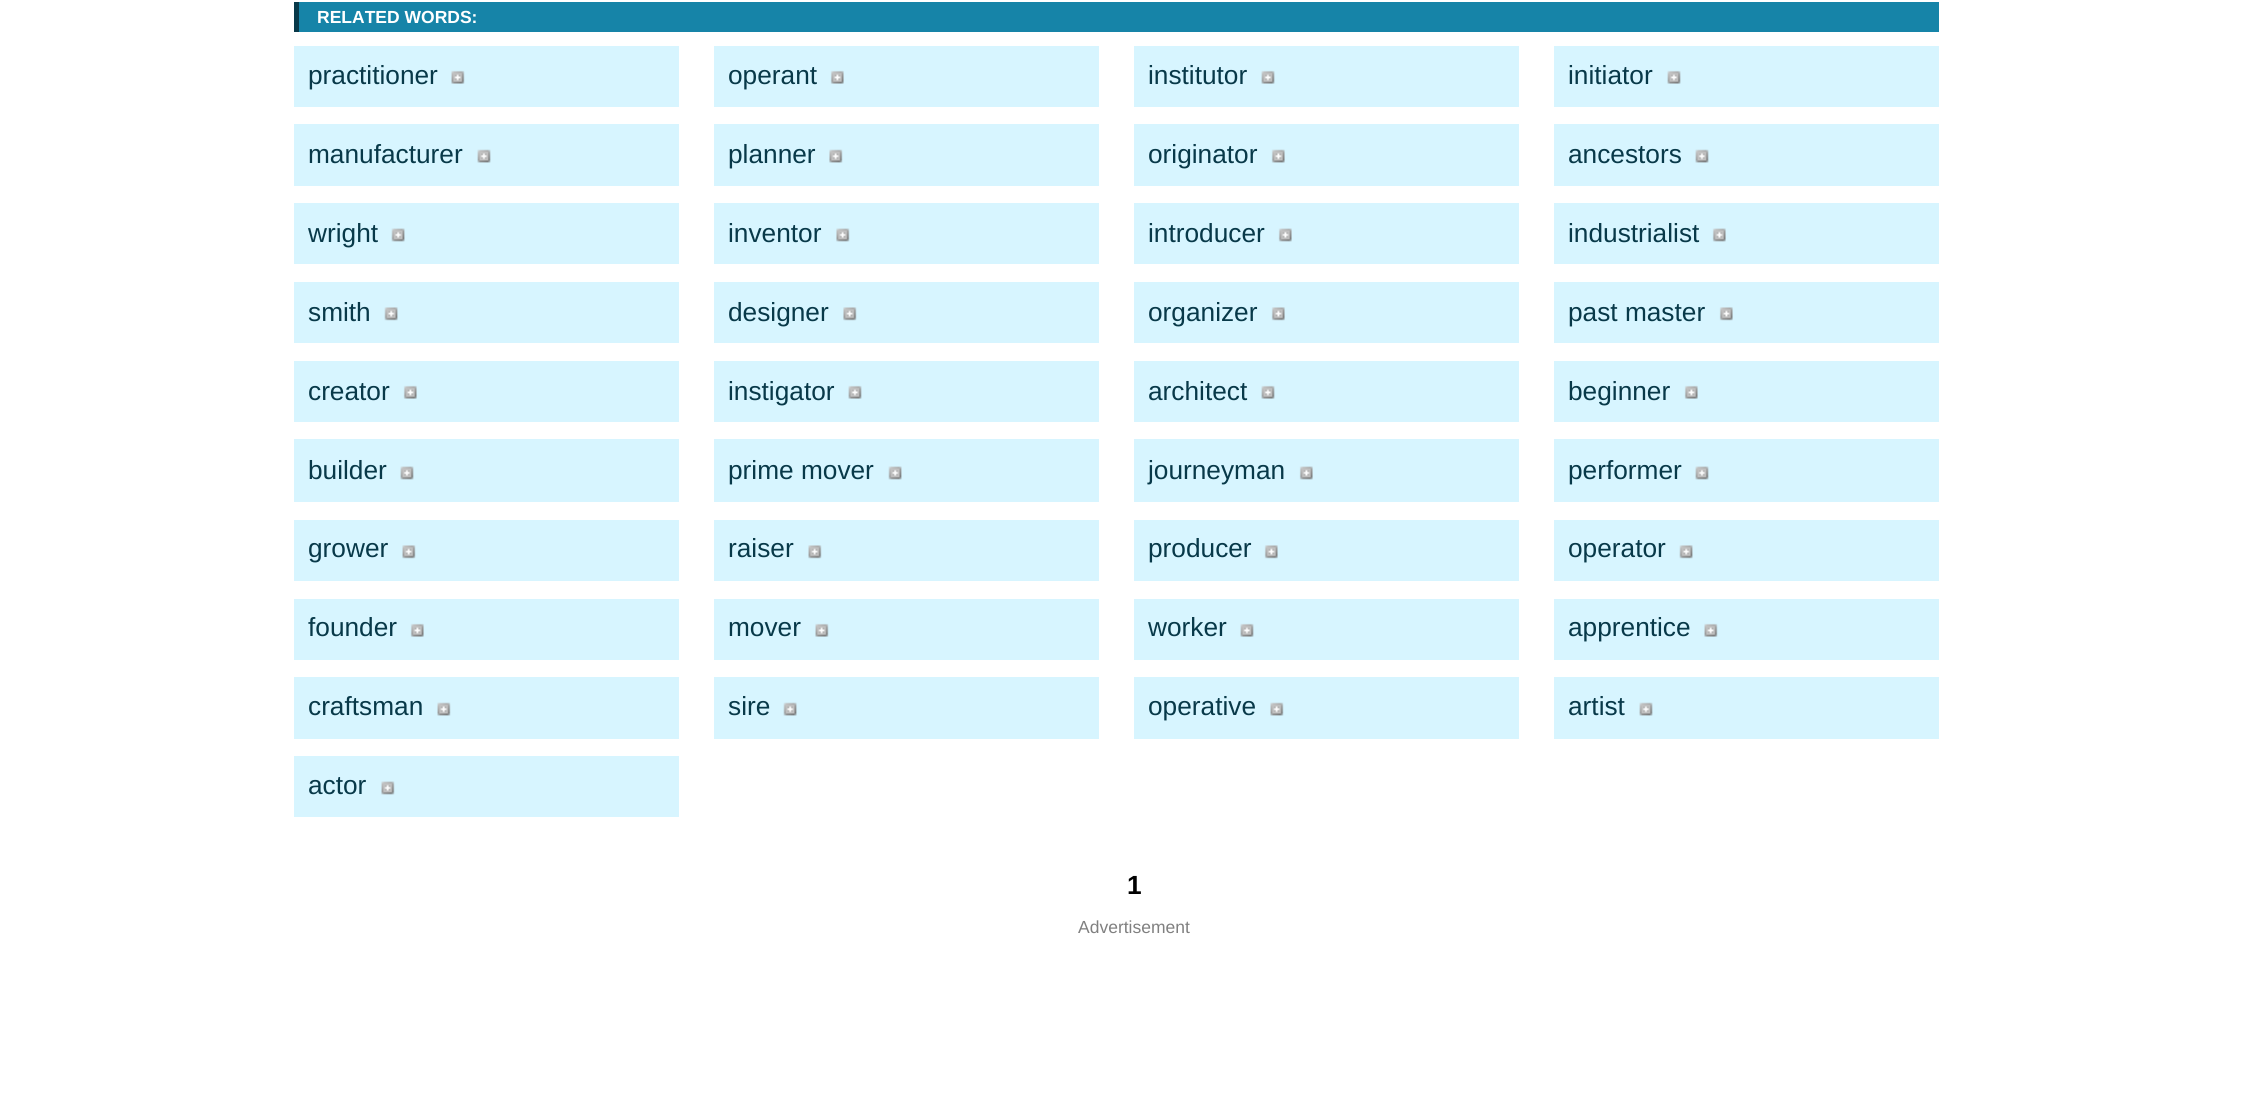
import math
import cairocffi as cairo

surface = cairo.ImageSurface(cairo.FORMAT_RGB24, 2267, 1113)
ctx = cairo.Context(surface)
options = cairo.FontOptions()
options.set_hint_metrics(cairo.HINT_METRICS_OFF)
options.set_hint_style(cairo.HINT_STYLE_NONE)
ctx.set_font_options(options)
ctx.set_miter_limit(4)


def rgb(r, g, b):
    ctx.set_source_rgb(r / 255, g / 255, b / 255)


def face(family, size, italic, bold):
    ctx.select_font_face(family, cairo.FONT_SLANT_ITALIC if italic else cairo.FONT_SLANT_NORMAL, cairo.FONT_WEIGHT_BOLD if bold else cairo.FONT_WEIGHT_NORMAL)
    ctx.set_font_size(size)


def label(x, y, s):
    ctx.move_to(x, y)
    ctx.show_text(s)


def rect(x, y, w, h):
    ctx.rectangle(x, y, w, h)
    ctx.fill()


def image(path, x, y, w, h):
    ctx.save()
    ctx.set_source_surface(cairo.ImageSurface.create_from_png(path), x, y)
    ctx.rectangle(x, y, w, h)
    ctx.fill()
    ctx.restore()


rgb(255, 255, 255)
ctx.paint()
rgb(22, 132, 168)
rect(299, 2, 1640, 30)
rgb(8, 57, 73)
rect(294, 2, 5, 30)
face('Liberation Sans', 17.5, 0, 1)
rgb(255, 255, 255)
label(317, 23, 'RELATED WORDS:')
rgb(215, 245, 255)
rect(294, 46, 385, 61)
face('Liberation Sans', 26.25, 0, 0)
rgb(8, 57, 73)
label(308, 84, 'practitioner')
image('image0.png', 451, 70, 14, 14)
rgb(215, 245, 255)
rect(714, 46, 385, 61)
rgb(8, 57, 73)
label(728, 84, 'operant')
image('image1.png', 830, 70, 14, 14)
rgb(215, 245, 255)
rect(1134, 46, 385, 61)
rgb(8, 57, 73)
label(1148, 84, 'institutor')
image('image2.png', 1261, 70, 14, 14)
rgb(215, 245, 255)
rect(1554, 46, 385, 61)
rgb(8, 57, 73)
label(1568, 84, 'initiator')
image('image2.png', 1667, 70, 14, 14)
rgb(215, 245, 255)
rect(294, 124, 385, 62)
rgb(8, 57, 73)
label(308, 163, 'manufacturer')
image('image3.png', 477, 149, 14, 14)
rgb(215, 245, 255)
rect(714, 124, 385, 62)
rgb(8, 57, 73)
label(728, 163, 'planner')
image('image4.png', 829, 149, 14, 14)
rgb(215, 245, 255)
rect(1134, 124, 385, 62)
rgb(8, 57, 73)
label(1148, 163, 'originator')
image('image5.png', 1271, 149, 14, 14)
rgb(215, 245, 255)
rect(1554, 124, 385, 62)
rgb(8, 57, 73)
label(1568, 163, 'ancestors')
image('image3.png', 1695, 149, 14, 14)
rgb(215, 245, 255)
rect(294, 203, 385, 61)
rgb(8, 57, 73)
label(308, 242, 'wright')
image('image6.png', 391, 228, 14, 14)
rgb(215, 245, 255)
rect(714, 203, 385, 61)
rgb(8, 57, 73)
label(728, 242, 'inventor')
image('image7.png', 836, 228, 14, 14)
rgb(215, 245, 255)
rect(1134, 203, 385, 61)
rgb(8, 57, 73)
label(1148, 242, 'introducer')
image('image8.png', 1278, 228, 14, 14)
rgb(215, 245, 255)
rect(1554, 203, 385, 61)
rgb(8, 57, 73)
label(1568, 242, 'industrialist')
image('image8.png', 1712, 228, 14, 14)
rgb(215, 245, 255)
rect(294, 282, 385, 61)
rgb(8, 57, 73)
label(308, 321, 'smith')
image('image9.png', 384, 307, 14, 14)
rgb(215, 245, 255)
rect(714, 282, 385, 61)
rgb(8, 57, 73)
label(728, 321, 'designer')
image('image10.png', 843, 307, 14, 14)
rgb(215, 245, 255)
rect(1134, 282, 385, 61)
rgb(8, 57, 73)
label(1148, 321, 'organizer')
image('image11.png', 1271, 307, 14, 14)
rgb(215, 245, 255)
rect(1554, 282, 385, 61)
rgb(8, 57, 73)
label(1568, 321, 'past master')
image('image11.png', 1719, 307, 14, 14)
rgb(215, 245, 255)
rect(294, 361, 385, 61)
rgb(8, 57, 73)
label(308, 400, 'creator')
image('image1.png', 403, 385, 14, 14)
rgb(215, 245, 255)
rect(714, 361, 385, 61)
rgb(8, 57, 73)
label(728, 400, 'instigator')
image('image2.png', 848, 385, 14, 14)
rgb(215, 245, 255)
rect(1134, 361, 385, 61)
rgb(8, 57, 73)
label(1148, 400, 'architect')
image('image2.png', 1261, 385, 14, 14)
rgb(215, 245, 255)
rect(1554, 361, 385, 61)
rgb(8, 57, 73)
label(1568, 400, 'beginner')
image('image1.png', 1684, 385, 14, 14)
rgb(215, 245, 255)
rect(294, 439, 385, 63)
rgb(8, 57, 73)
label(308, 479, 'builder')
image('image12.png', 400, 466, 14, 14)
rgb(215, 245, 255)
rect(714, 439, 385, 63)
rgb(8, 57, 73)
label(728, 479, 'prime mover')
image('image6.png', 888, 466, 14, 14)
rgb(215, 245, 255)
rect(1134, 439, 385, 63)
rgb(8, 57, 73)
label(1148, 479, 'journeyman')
image('image8.png', 1299, 466, 14, 14)
rgb(215, 245, 255)
rect(1554, 439, 385, 63)
rgb(8, 57, 73)
label(1568, 479, 'performer')
image('image12.png', 1695, 466, 14, 14)
rgb(215, 245, 255)
rect(294, 520, 385, 61)
rgb(8, 57, 73)
label(308, 557, 'grower')
image('image13.png', 402, 545, 14, 14)
rgb(215, 245, 255)
rect(714, 520, 385, 61)
rgb(8, 57, 73)
label(728, 557, 'raiser')
image('image14.png', 808, 545, 14, 14)
rgb(215, 245, 255)
rect(1134, 520, 385, 61)
rgb(8, 57, 73)
label(1148, 557, 'producer')
image('image11.png', 1264, 545, 14, 14)
rgb(215, 245, 255)
rect(1554, 520, 385, 61)
rgb(8, 57, 73)
label(1568, 557, 'operator')
image('image9.png', 1679, 545, 14, 14)
rgb(215, 245, 255)
rect(294, 599, 385, 61)
rgb(8, 57, 73)
label(308, 636, 'founder')
image('image1.png', 410, 623, 14, 14)
rgb(215, 245, 255)
rect(714, 599, 385, 61)
rgb(8, 57, 73)
label(728, 636, 'mover')
image('image15.png', 815, 623, 14, 14)
rgb(215, 245, 255)
rect(1134, 599, 385, 61)
rgb(8, 57, 73)
label(1148, 636, 'worker')
image('image2.png', 1240, 623, 14, 14)
rgb(215, 245, 255)
rect(1554, 599, 385, 61)
rgb(8, 57, 73)
label(1568, 636, 'apprentice')
image('image0.png', 1704, 623, 14, 14)
rgb(215, 245, 255)
rect(294, 677, 385, 62)
rgb(8, 57, 73)
label(308, 715, 'craftsman')
image('image16.png', 437, 702, 14, 14)
rgb(215, 245, 255)
rect(714, 677, 385, 62)
rgb(8, 57, 73)
label(728, 715, 'sire')
image('image17.png', 783, 702, 14, 14)
rgb(215, 245, 255)
rect(1134, 677, 385, 62)
rgb(8, 57, 73)
label(1148, 715, 'operative')
image('image18.png', 1270, 702, 14, 14)
rgb(215, 245, 255)
rect(1554, 677, 385, 62)
rgb(8, 57, 73)
label(1568, 715, 'artist')
image('image19.png', 1639, 702, 14, 14)
rgb(215, 245, 255)
rect(294, 756, 385, 61)
rgb(8, 57, 73)
label(308, 794, 'actor')
image('image20.png', 381, 781, 14, 14)
face('Liberation Sans', 26.25, 0, 1)
rgb(0, 0, 0)
label(1127, 894, '1')
face('Liberation Sans', 17.5, 0, 0)
rgb(128, 128, 128)
label(1078, 933, 'Advertisement')
surface.write_to_png('render.png')
